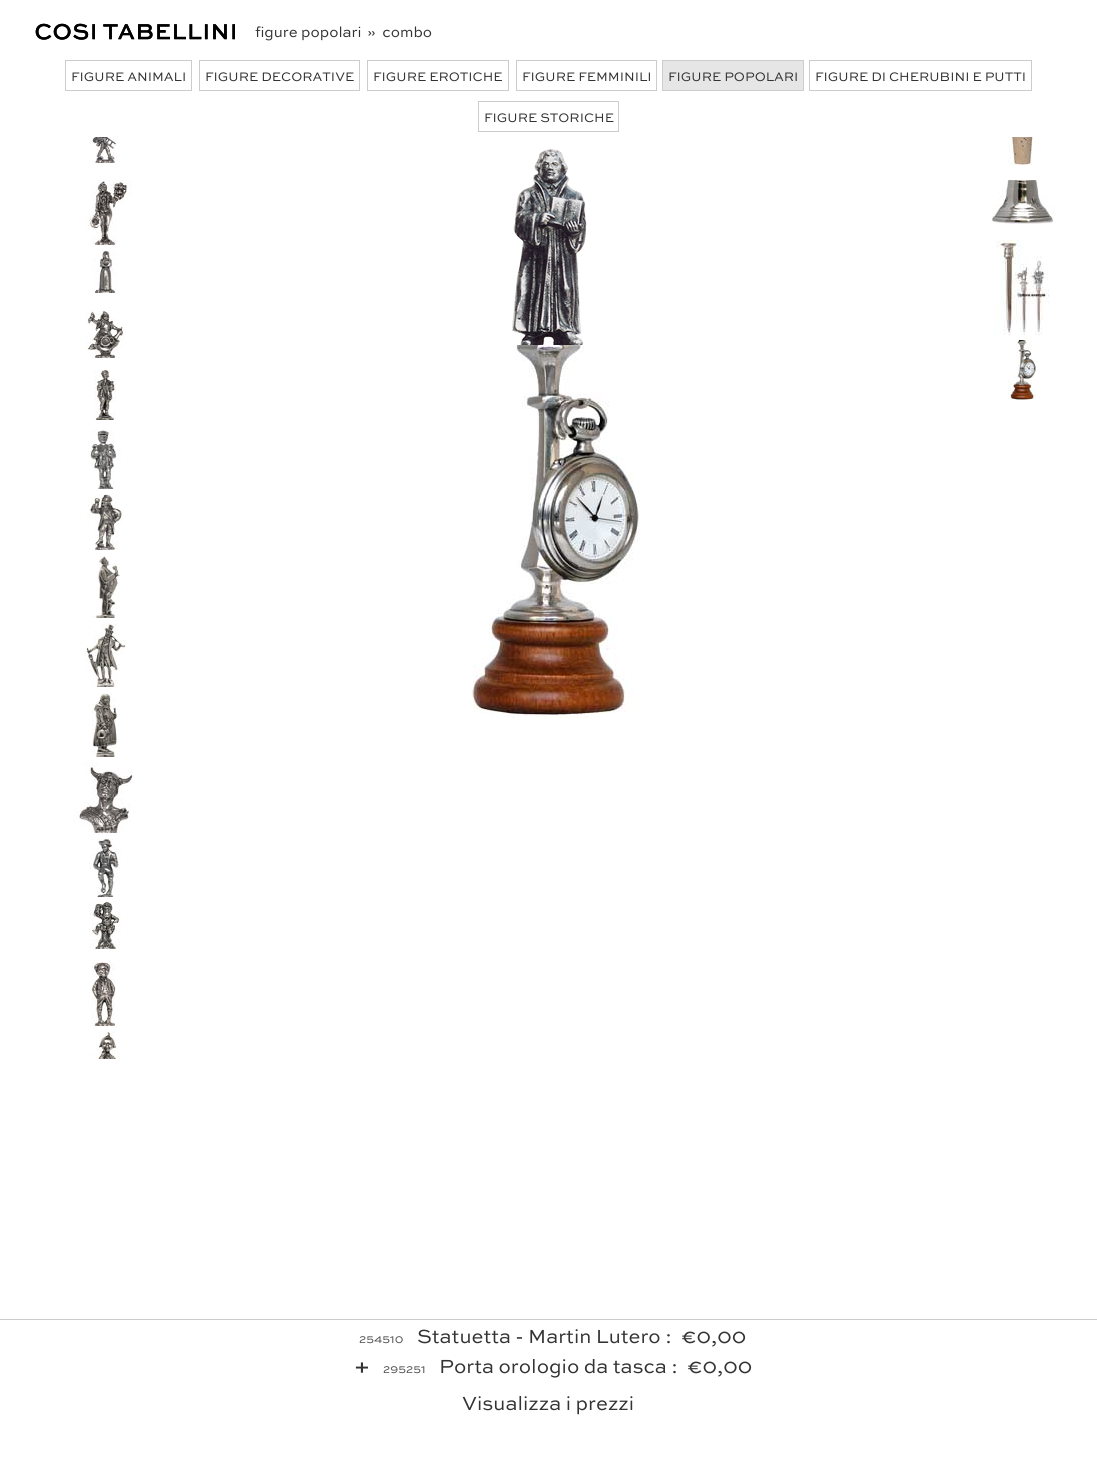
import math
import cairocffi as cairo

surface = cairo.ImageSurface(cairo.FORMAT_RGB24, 1097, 1460)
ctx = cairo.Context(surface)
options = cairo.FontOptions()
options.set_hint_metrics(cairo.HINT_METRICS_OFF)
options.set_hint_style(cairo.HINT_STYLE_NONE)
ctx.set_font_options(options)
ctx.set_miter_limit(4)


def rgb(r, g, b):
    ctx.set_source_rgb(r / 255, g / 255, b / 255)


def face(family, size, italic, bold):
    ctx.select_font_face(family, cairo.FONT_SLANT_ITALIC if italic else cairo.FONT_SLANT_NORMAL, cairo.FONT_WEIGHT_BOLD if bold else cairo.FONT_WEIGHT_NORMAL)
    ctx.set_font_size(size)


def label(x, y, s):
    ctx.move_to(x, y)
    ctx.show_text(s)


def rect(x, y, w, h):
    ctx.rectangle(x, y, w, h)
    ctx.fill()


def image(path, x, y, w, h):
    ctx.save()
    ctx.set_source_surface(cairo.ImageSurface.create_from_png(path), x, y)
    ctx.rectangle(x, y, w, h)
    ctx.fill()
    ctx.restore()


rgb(255, 255, 255)
ctx.paint()
image('image0.png', 35, 23, 200, 17)
face('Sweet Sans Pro', 15, 0, 0)
rgb(51, 51, 51)
label(255, 37, 'figure popolari')
label(367, 37, '»  combo')
ctx.rectangle(65.5, 60.5, 126, 30)
rgb(204, 204, 204)
ctx.set_line_width(1)
ctx.stroke()
face('Sweet Sans Pro', 13, 0, 0)
rgb(51, 51, 51)
label(71, 81, 'FIGURE ANIMALI')
ctx.rectangle(199.5, 60.5, 160, 30)
rgb(204, 204, 204)
ctx.stroke()
rgb(51, 51, 51)
label(205, 81, 'FIGURE DECORATIVE')
ctx.rectangle(367.5, 60.5, 141, 30)
rgb(204, 204, 204)
ctx.stroke()
rgb(51, 51, 51)
label(373, 81, 'FIGURE EROTICHE')
ctx.rectangle(516.5, 60.5, 140, 30)
rgb(204, 204, 204)
ctx.stroke()
rgb(51, 51, 51)
label(522, 81, 'FIGURE FEMMINILI')
rgb(230, 230, 230)
ctx.rectangle(662.5, 60.5, 141, 30)
ctx.fill_preserve()
rgb(204, 204, 204)
ctx.stroke()
rgb(51, 51, 51)
label(668, 81, 'FIGURE POPOLARI')
ctx.rectangle(809.5, 60.5, 222, 30)
rgb(204, 204, 204)
ctx.stroke()
rgb(51, 51, 51)
label(815, 81, 'FIGURE DI CHERUBINI E PUTTI')
ctx.rectangle(478.5, 101.5, 140, 30)
rgb(204, 204, 204)
ctx.stroke()
rgb(51, 51, 51)
label(484, 122, 'FIGURE STORICHE')
image('image1.png', 88, 137, 32, 26)
image('image2.png', 85, 180, 47, 65)
image('image3.png', 93, 250, 24, 43)
image('image4.png', 86, 310, 38, 48)
image('image5.png', 94, 370, 22, 50)
image('image6.png', 90, 430, 31, 59)
image('image7.png', 87, 494, 36, 56)
image('image8.png', 91, 555, 29, 63)
image('image9.png', 85, 623, 41, 64)
image('image10.png', 92, 692, 27, 65)
image('image11.png', 75, 762, 58, 71)
image('image12.png', 89, 838, 32, 59)
image('image13.png', 89, 902, 32, 47)
image('image14.png', 91, 962, 25, 64)
image('image15.png', 92, 1031, 28, 28)
image('image16.png', 512, 149, 75, 196)
image('image17.png', 1008, 137, 28, 28)
image('image18.png', 991, 180, 63, 44)
image('image19.png', 995, 240, 54, 95)
image('image20.png', 1008, 340, 28, 60)
image('image21.png', 471, 345, 169, 373)
rgb(204, 204, 204)
rect(0, 1319, 1097, 1)
face('Sweet Sans Pro', 12, 0, 0)
rgb(85, 85, 85)
label(359, 1343, '254510')
face('Sweet Sans Pro', 20, 0, 0)
rgb(51, 51, 51)
label(417, 1343, 'Statuetta - Martin Lutero :')
label(681, 1343, '€0,00')
face('Sweet Sans Pro Medium', 21, 0, 0)
label(354, 1373, '+')
face('Sweet Sans Pro', 12, 0, 0)
rgb(85, 85, 85)
label(383, 1373, '295251')
face('Sweet Sans Pro', 20, 0, 0)
rgb(51, 51, 51)
label(439, 1373, 'Porta orologio da tasca :')
label(687, 1373, '€0,00')
label(462, 1410, 'Visualizza i prezzi')
surface.write_to_png('render.png')
